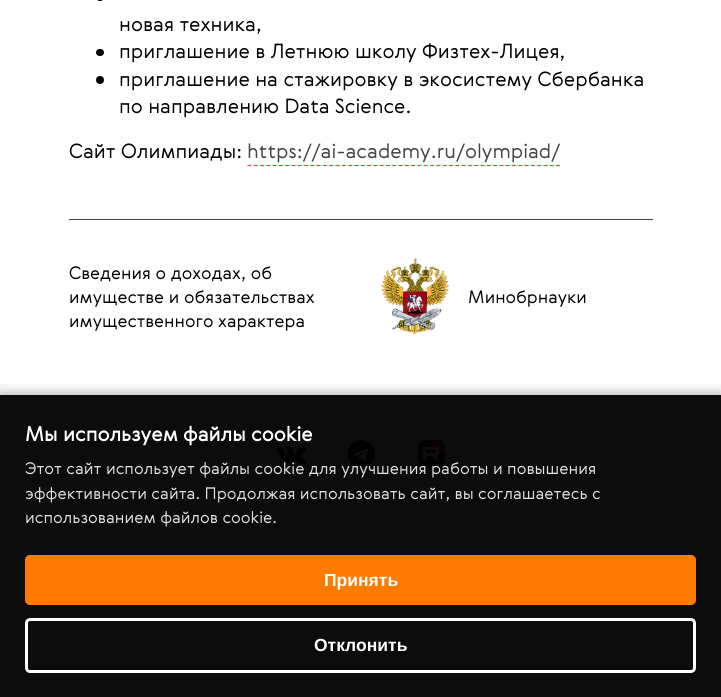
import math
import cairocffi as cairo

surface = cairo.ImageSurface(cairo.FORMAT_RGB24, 721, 697)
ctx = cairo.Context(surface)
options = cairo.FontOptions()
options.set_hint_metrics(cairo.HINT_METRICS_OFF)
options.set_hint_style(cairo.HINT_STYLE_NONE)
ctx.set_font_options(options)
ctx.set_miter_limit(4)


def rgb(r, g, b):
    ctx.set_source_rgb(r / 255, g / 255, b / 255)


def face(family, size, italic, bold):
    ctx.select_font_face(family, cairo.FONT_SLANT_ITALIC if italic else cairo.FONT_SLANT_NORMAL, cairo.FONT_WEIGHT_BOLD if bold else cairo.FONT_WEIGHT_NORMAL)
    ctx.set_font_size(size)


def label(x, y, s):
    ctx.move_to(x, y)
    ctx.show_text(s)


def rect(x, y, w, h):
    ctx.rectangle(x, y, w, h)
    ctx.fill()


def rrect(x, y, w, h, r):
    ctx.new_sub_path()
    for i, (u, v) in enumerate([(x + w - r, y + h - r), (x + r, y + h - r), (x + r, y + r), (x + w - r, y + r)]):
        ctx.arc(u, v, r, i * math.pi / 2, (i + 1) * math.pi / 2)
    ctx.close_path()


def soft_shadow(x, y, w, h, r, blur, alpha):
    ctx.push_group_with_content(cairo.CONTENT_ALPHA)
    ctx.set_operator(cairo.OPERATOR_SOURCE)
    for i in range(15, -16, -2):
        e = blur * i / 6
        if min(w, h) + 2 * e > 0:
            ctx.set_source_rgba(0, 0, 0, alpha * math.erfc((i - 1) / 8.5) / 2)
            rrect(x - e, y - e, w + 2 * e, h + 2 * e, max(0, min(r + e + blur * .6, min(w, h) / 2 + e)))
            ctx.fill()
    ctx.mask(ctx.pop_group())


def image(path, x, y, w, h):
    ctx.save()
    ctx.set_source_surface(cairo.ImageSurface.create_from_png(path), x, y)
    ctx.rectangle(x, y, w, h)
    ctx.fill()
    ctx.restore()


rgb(255, 255, 255)
ctx.paint()
rgb(0, 0, 0)
rrect(96, -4, 8, 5, 3.5)
ctx.fill()
face('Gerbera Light', 20, 0, 0)
label(119, 31, 'новая техника,')
rrect(96, 49, 8, 7, 3.5)
ctx.fill()
label(119, 58, 'приглашение в Летнюю школу Физтех-Лицея,')
ctx.new_path()
ctx.arc(100, 80, 4, 0, 2 * math.pi)
ctx.fill()
label(119, 86, 'приглашение на стажировку в экосистему Сбербанка')
label(119, 113, 'по направлению Data Science.')
label(69, 158, 'Сайт Олимпиады:')
rgb(68, 68, 68)
label(247, 158, 'https://ai-academy.ru/olympiad/')
ctx.new_path()
ctx.move_to(247.5, 165.5)
ctx.line_to(560, 165.5)
rgb(255, 57, 62)
ctx.set_line_width(1.2)
ctx.set_dash([3.75, 2.55])
ctx.stroke()
rgb(68, 68, 68)
rect(69, 219, 584, 1)
face('Gerbera Light', 17.5, 0, 0)
rgb(0, 0, 0)
label(69, 279, 'Сведения о доходах, об')
label(69, 303, 'имуществе и обязательствах')
label(69, 327, 'имущественного характера')
image('image0.png', 381, 258, 68, 76)
label(468, 303, 'Минобрнауки')
rgb(248, 249, 250)
ctx.new_path()
ctx.move_to(290.5, 430)
ctx.curve_to(304.5, 430, 316, 441, 316, 454.5)
ctx.curve_to(316, 468, 304.5, 479, 290.5, 479)
ctx.curve_to(276.5, 479, 265, 468, 265, 454.5)
ctx.curve_to(265, 441, 276.5, 430, 290.5, 430)
ctx.close_path()
ctx.fill()
image('image1.png', 276, 446, 30, 18)
rrect(336, 430, 50, 49, 24.5)
ctx.fill()
image('image2.png', 347, 440, 28, 28)
rrect(406, 430, 50, 49, 24.5)
ctx.fill()
image('image3.png', 418, 440, 27, 28)
ctx.save()
ctx.rectangle(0, 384, 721, 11)
ctx.clip()
rgb(0, 0, 0)
soft_shadow(0, 393, 721, 302, 0, 6, 0.3)
ctx.restore()
ctx.set_source_rgba(0, 0, 0, 0.95)
rect(0, 395, 721, 302)
face('Gerbera', 20, 0, 1)
rgb(255, 255, 255)
label(25, 441, 'Мы используем файлы cookie')
face('Gerbera Light', 16.25, 0, 0)
rgb(224, 224, 224)
label(25, 474, 'Этот сайт использует файлы cookie для улучшения работы и повышения')
label(25, 499, 'эффективности сайта. Продолжая использовать сайт, вы соглашаетесь с')
label(25, 523, 'использованием файлов cookie.')
rgb(255, 123, 0)
rrect(25, 555, 671, 50, 5)
ctx.fill()
face('Liberation Sans', 17.5, 0, 1)
rgb(255, 255, 255)
label(324, 586, 'Принять')
rrect(26.5, 619.5, 668, 52, 3.5)
ctx.set_line_width(3)
ctx.set_dash([])
ctx.stroke()
label(314, 651, 'Отклонить')
surface.write_to_png('render.png')
